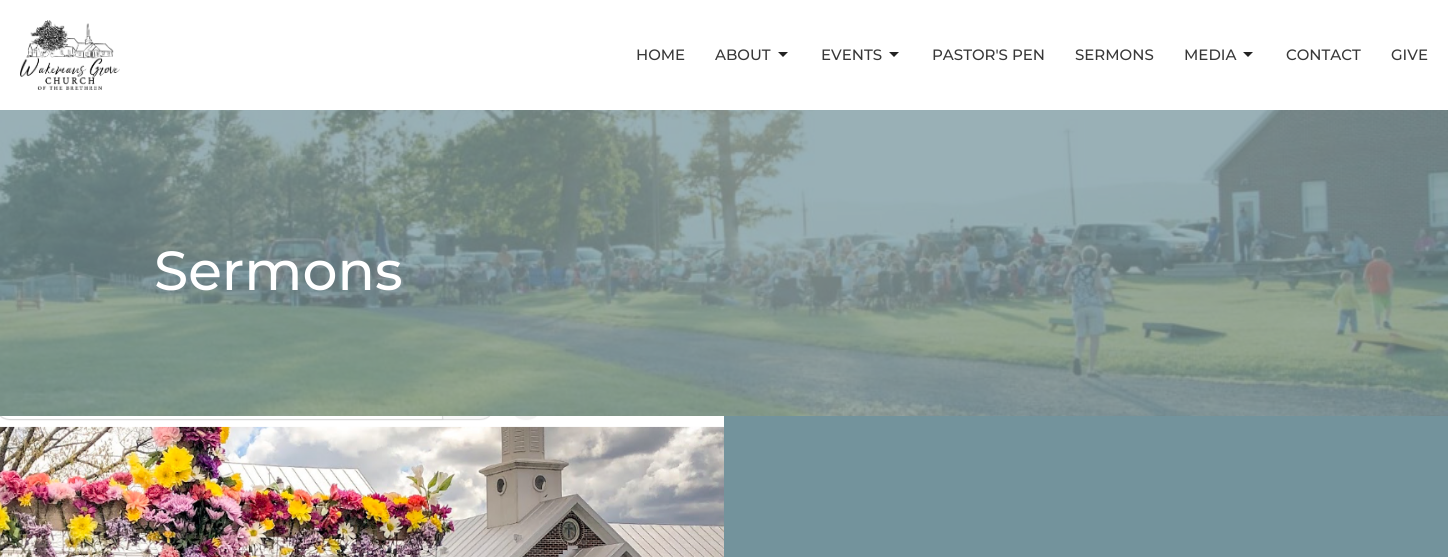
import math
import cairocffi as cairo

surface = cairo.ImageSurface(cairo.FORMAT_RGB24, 1448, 557)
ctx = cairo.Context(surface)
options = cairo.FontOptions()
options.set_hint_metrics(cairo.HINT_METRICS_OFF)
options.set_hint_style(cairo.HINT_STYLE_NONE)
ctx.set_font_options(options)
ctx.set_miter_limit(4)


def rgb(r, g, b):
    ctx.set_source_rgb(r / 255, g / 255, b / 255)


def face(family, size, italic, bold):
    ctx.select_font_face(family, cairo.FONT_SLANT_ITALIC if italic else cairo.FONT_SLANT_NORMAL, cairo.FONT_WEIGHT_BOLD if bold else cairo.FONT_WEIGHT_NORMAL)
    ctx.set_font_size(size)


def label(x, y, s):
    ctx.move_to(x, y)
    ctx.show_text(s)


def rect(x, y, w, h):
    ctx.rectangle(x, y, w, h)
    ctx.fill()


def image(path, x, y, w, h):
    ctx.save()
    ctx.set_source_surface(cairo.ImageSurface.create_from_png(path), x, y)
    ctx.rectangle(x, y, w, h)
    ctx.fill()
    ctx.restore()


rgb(255, 255, 255)
ctx.paint()
image('image0.png', 20, 20, 100, 70)
face('Montserrat Medium', 15, 0, 0)
rgb(56, 56, 56)
label(636, 60, 'HOME')
label(715, 60, 'ABOUT')
rgb(34, 34, 34)
ctx.new_path()
ctx.move_to(778, 52)
ctx.line_to(783, 57)
ctx.line_to(788, 52)
ctx.close_path()
ctx.fill()
rgb(56, 56, 56)
label(821, 60, 'EVENTS')
rgb(34, 34, 34)
ctx.new_path()
ctx.move_to(889, 52)
ctx.line_to(894, 57)
ctx.line_to(899, 52)
ctx.close_path()
ctx.fill()
rgb(56, 56, 56)
label(932, 60, 'PASTOR\'S PEN')
label(1075, 60, 'SERMONS')
label(1184, 60, 'MEDIA')
rgb(34, 34, 34)
ctx.new_path()
ctx.move_to(1243, 52)
ctx.line_to(1248, 57)
ctx.line_to(1253, 52)
ctx.close_path()
ctx.fill()
rgb(56, 56, 56)
label(1286, 60, 'CONTACT')
label(1391, 60, 'GIVE')
image('image1.png', 0, 110, 1448, 306)
face('Montserrat Medium', 55, 0, 0)
rgb(255, 255, 255)
label(154, 290, 'Sermons')
image('image2.png', 0, 416, 724, 141)
rgb(115, 147, 156)
rect(724, 416, 724, 141)
surface.write_to_png('render.png')
